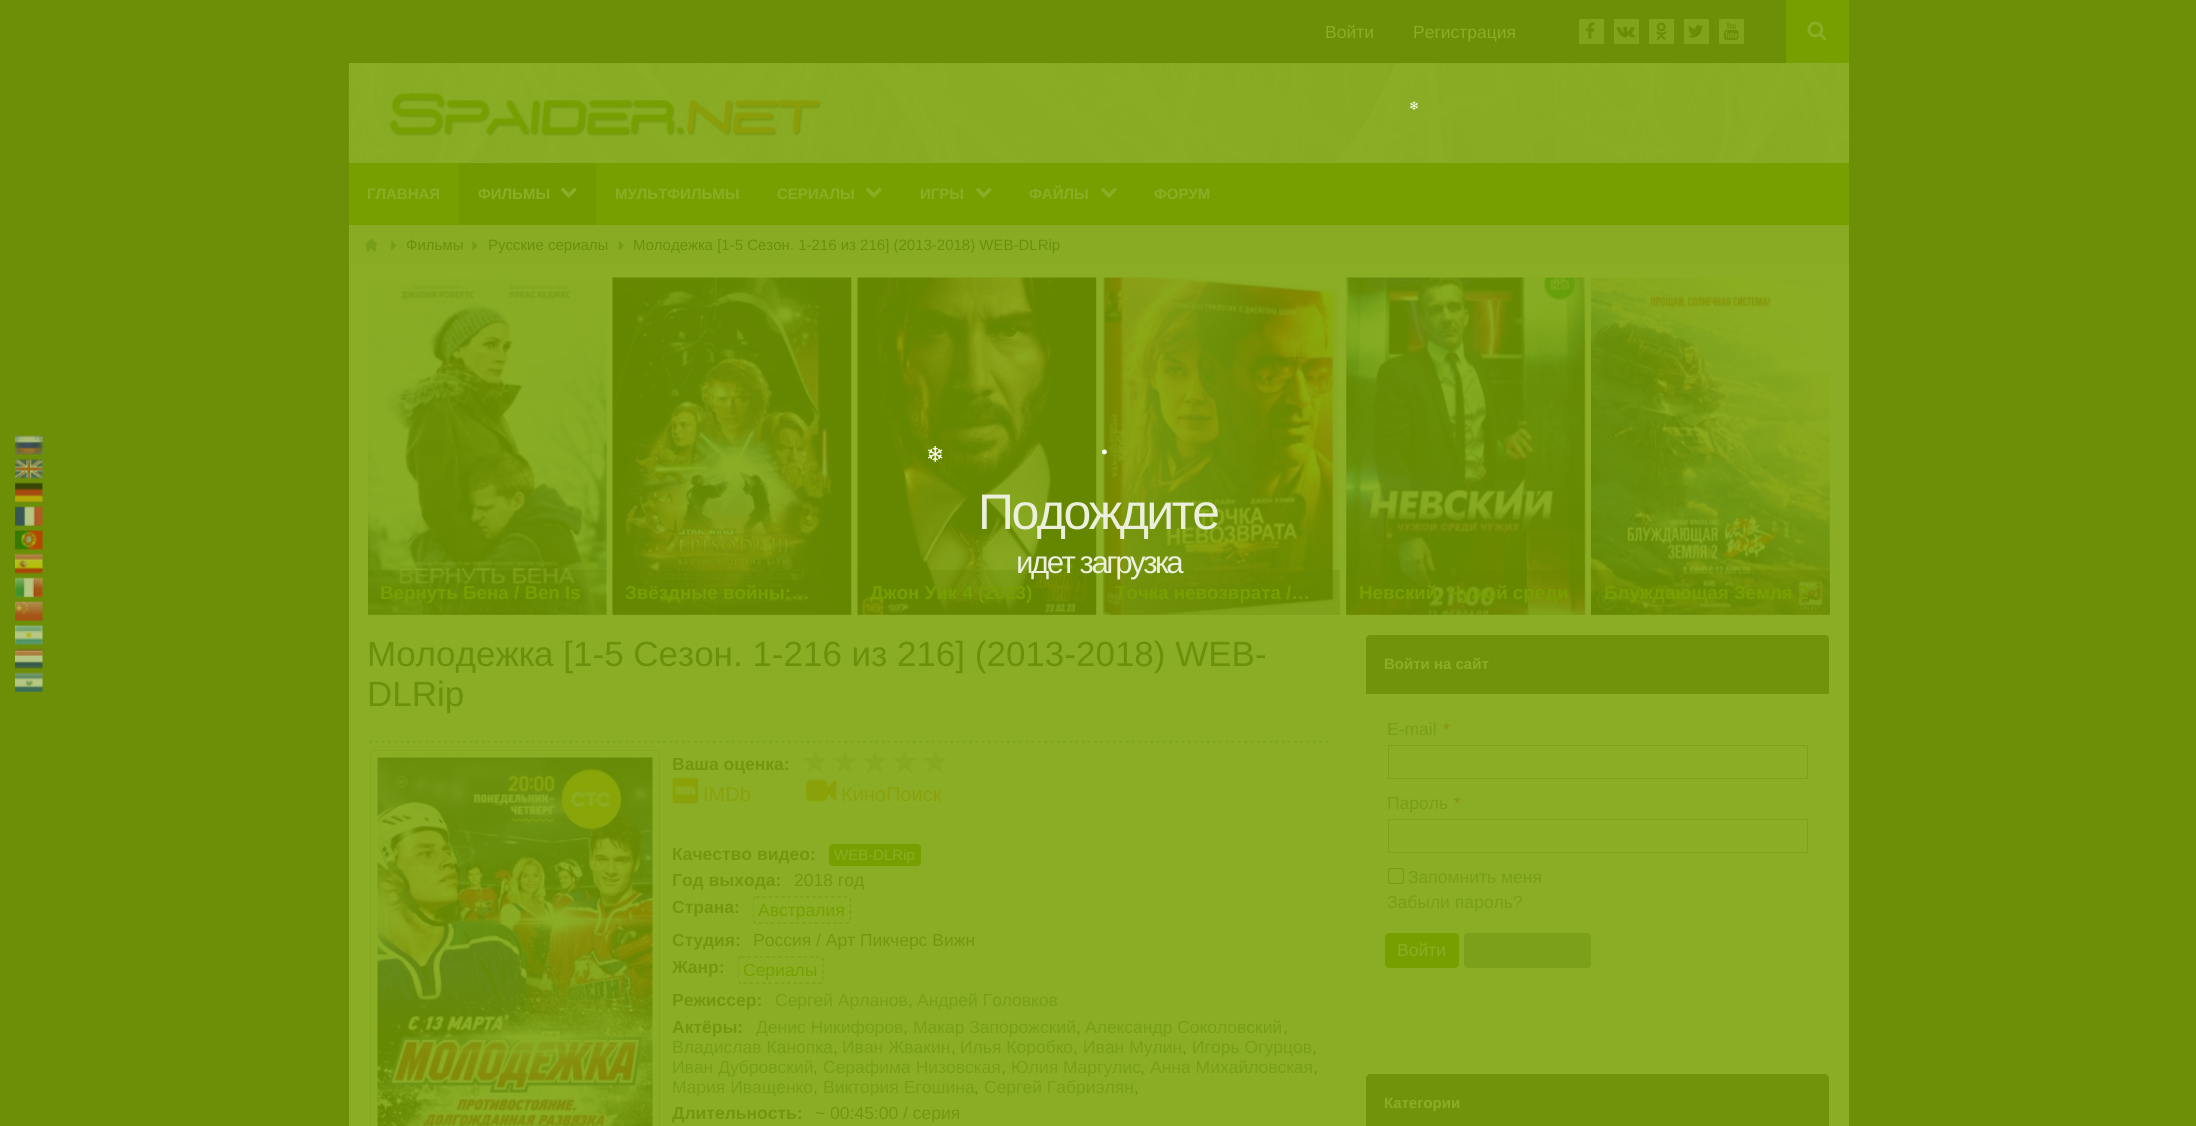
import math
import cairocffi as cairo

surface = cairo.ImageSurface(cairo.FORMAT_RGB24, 2196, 1126)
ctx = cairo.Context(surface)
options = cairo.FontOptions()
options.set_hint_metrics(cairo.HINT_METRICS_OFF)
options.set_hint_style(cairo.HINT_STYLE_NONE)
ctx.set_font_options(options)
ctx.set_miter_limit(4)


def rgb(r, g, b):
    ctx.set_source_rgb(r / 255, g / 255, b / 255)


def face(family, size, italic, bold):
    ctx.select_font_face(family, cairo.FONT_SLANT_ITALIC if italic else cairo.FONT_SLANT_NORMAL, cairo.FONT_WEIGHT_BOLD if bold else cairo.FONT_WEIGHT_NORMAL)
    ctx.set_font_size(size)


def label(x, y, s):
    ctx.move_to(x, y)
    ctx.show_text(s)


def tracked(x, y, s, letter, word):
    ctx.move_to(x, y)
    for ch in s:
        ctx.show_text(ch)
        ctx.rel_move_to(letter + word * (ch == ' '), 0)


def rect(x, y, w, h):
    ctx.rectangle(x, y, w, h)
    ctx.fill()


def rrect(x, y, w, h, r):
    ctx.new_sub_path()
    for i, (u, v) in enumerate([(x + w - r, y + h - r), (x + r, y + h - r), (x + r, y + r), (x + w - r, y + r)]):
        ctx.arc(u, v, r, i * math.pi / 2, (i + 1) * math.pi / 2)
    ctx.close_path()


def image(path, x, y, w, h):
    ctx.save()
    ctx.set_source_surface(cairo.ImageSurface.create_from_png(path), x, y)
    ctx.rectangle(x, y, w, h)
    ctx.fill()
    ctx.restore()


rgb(109, 143, 8)
ctx.paint()
rgb(139, 173, 38)
rect(349, 63, 1500, 100)
image('image6.png', 348, 62, 1501, 101)
rgb(107, 141, 6)
rect(349, 62, 1437, 1)
face('Liberation Sans', 17.5, 0, 0)
rgb(139, 173, 38)
label(1325, 38, 'Войти')
label(1413, 38, 'Регистрация')
rgb(129, 163, 28)
rect(1579, 19, 25, 25)
image('image0.png', 1585, 22, 10, 17)
rect(1614, 19, 25, 25)
image('image1.png', 1616, 26, 19, 12)
rect(1649, 19, 25, 25)
image('image2.png', 1656, 22, 11, 18)
rect(1684, 19, 25, 25)
image('image3.png', 1688, 25, 16, 13)
rect(1719, 19, 25, 25)
image('image4.png', 1724, 22, 15, 18)
rgb(119, 159, 0)
rect(1786, 0, 63, 63)
image('image5.png', 1807, 21, 20, 20)
image('image7.png', 389, 92, 433, 45)
rect(349, 163, 1500, 62)
face('Liberation Sans', 15, 0, 1)
rgb(139, 173, 38)
label(367, 199, 'ГЛАВНАЯ')
rgb(115, 153, 1)
rect(459, 163, 137, 62)
rgb(139, 173, 38)
label(478, 199, 'ФИЛЬМЫ')
image('image8.png', 561, 187, 16, 11)
label(615, 199, 'МУЛЬТФИЛЬМЫ')
label(777, 199, 'СЕРИАЛЫ')
image('image9.png', 866, 187, 16, 11)
label(920, 199, 'ИГРЫ')
image('image9.png', 976, 187, 16, 11)
label(1029, 199, 'ФАЙЛЫ')
image('image9.png', 1101, 187, 16, 11)
label(1154, 199, 'ФОРУМ')
rgb(137, 171, 36)
rect(349, 225, 1500, 40)
image('image10.png', 364, 238, 14, 14)
image('image11.png', 391, 240, 6, 12)
face('Liberation Sans', 15, 0, 0)
rgb(108, 144, 12)
label(406, 250, 'Фильмы')
image('image12.png', 472, 240, 6, 12)
label(488, 250, 'Русские сериалы')
image('image13.png', 618, 240, 6, 12)
label(633, 250, 'Молодежка [1-5 Сезон. 1-216 из 216] (2013-2018) WEB-DLRip')
image('image14.png', 15, 435, 28, 20)
image('image15.png', 15, 458, 28, 21)
image('image16.png', 15, 482, 28, 20)
image('image17.png', 15, 506, 28, 20)
image('image18.png', 15, 530, 28, 20)
image('image19.png', 15, 553, 28, 21)
image('image20.png', 15, 577, 28, 21)
image('image21.png', 15, 601, 28, 20)
image('image22.png', 15, 625, 28, 20)
image('image23.png', 15, 648, 28, 21)
image('image24.png', 15, 672, 28, 20)
rgb(139, 173, 37)
rect(349, 265, 1500, 861)
image('image28.png', 1102, 277, 238, 338)
ctx.arc(1104.4, 451.9, 1.2, 0, 2 * math.pi)
ctx.set_source_rgba(1, 1, 1, 0.85)
ctx.set_line_width(2.3)
ctx.stroke()
ctx.arc(1104.4, 451.9, 1.2, 0, 2 * math.pi)
ctx.stroke()
image('image27.png', 857, 277, 240, 338)
face('Liberation Sans', 50, 0, 0)
rgb(235, 239, 219)
tracked(978, 529, 'Подождите', -2.5, 0)
ctx.set_source_rgba(0.396, 0.529, 0, 0.3)
rect(858, 570, 238, 45)
rect(1103, 570, 237, 45)
face('Liberation Sans', 31.25, 0, 0)
rgb(235, 239, 219)
tracked(1016, 573, 'идет загрузка', -2.5, 0)
image('image25.png', 368, 278, 239, 337)
ctx.set_source_rgba(0.396, 0.529, 0, 0.3)
rect(368, 570, 238, 45)
face('Liberation Sans', 18.75, 0, 1)
rgb(119, 159, 0)
label(380, 599, 'Вернуть Бена / Ben Is')
image('image26.png', 612, 277, 240, 338)
ctx.set_source_rgba(0.396, 0.529, 0, 0.3)
rect(613, 570, 238, 45)
rgb(119, 159, 0)
label(625, 599, 'Звёздные войны:…')
ctx.save()
ctx.rectangle(870, 583, 214, 20)
ctx.clip()
label(870, 599, 'Джон Уик 4 (2023)')
ctx.restore()
label(1115, 599, 'Точка невозврата /…')
image('image29.png', 1346, 277, 240, 338)
ctx.set_source_rgba(0.396, 0.529, 0, 0.3)
rect(1346, 570, 239, 45)
rgb(119, 159, 0)
label(1359, 599, 'Невский. Чужой среди')
image('image30.png', 1591, 278, 239, 337)
ctx.set_source_rgba(0.396, 0.529, 0, 0.3)
rect(1591, 570, 239, 45)
rgb(119, 159, 0)
label(1604, 599, 'Блуждающая Земля 2')
face('Liberation Sans', 35, 0, 0)
rgb(108, 144, 12)
label(367, 666, 'Молодежка [1-5 Сезон. 1-216 из 216] (2013-2018) WEB-')
label(367, 706, 'DLRip')
image('image31.png', 369, 741, 959, 2)
rrect(370.5, 750.5, 289, 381, 4.5)
rgb(132, 166, 31)
ctx.set_line_width(1)
ctx.stroke()
image('image32.png', 377, 757, 276, 369)
face('Liberation Sans', 17.5, 0, 1)
rgb(116, 150, 15)
label(672, 770, 'Ваша оценка:')
rgb(134, 168, 32)
ctx.new_path()
ctx.move_to(815, 749)
ctx.line_to(806.5, 774.5)
ctx.line_to(827, 758)
ctx.line_to(802.5, 758)
ctx.line_to(823, 774.5)
ctx.close_path()
ctx.move_to(845, 749)
ctx.line_to(836.5, 774.5)
ctx.line_to(857, 758)
ctx.line_to(832.5, 758)
ctx.line_to(853, 774.5)
ctx.close_path()
ctx.fill()
ctx.new_path()
ctx.move_to(875, 749)
ctx.line_to(866.5, 774.5)
ctx.line_to(887, 758)
ctx.line_to(862.5, 758)
ctx.line_to(883, 774.5)
ctx.close_path()
ctx.move_to(905, 749)
ctx.line_to(896.5, 774.5)
ctx.line_to(917, 758)
ctx.line_to(892.5, 758)
ctx.line_to(913, 774.5)
ctx.close_path()
ctx.fill()
ctx.new_path()
ctx.move_to(935, 749)
ctx.line_to(926.5, 774.5)
ctx.line_to(947, 758)
ctx.line_to(922.5, 758)
ctx.line_to(943, 774.5)
ctx.close_path()
ctx.fill()
image('image33.png', 672, 777, 27, 27)
face('Liberation Sans', 20, 0, 0)
rgb(138, 161, 11)
label(703, 801, 'IMDb')
image('image34.png', 806, 779, 31, 23)
label(841, 801, 'КиноПоиск')
face('Liberation Sans', 17.5, 0, 1)
rgb(116, 150, 15)
label(672, 860, 'Качество видео:')
rgb(119, 159, 0)
rrect(829, 844, 92, 22, 4)
ctx.fill()
face('Liberation Sans', 15, 0, 0)
rgb(139, 173, 38)
label(834, 860, 'WEB-DLRip')
face('Liberation Sans', 17.5, 0, 1)
rgb(116, 150, 15)
label(672, 886, 'Год выхода:')
face('Liberation Sans', 17.5, 0, 0)
label(794, 886, '2018 год')
face('Liberation Sans', 17.5, 0, 1)
label(672, 913, 'Страна:')
ctx.save()
ctx.rectangle(753, 896, 576, 34)
ctx.clip()
ctx.new_path()
ctx.move_to(756, 897)
ctx.line_to(847.5, 897)
ctx.curve_to(849, 897, 850.5, 898.5, 850.5, 900)
ctx.line_to(850.5, 920)
ctx.curve_to(850.5, 921.5, 849, 923, 847.5, 923)
ctx.line_to(756, 923)
ctx.curve_to(754.5, 923, 753, 921.5, 753, 920)
ctx.line_to(753, 900)
ctx.curve_to(753, 898.5, 754.5, 897, 756, 897)
ctx.close_path()
rgb(124, 158, 23)
ctx.set_line_width(1.2)
ctx.set_dash([3.75, 2.5])
ctx.stroke()
ctx.restore()
face('Liberation Sans', 17.5, 0, 0)
rgb(119, 159, 0)
label(758, 916, 'Австралия')
face('Liberation Sans', 17.5, 0, 1)
rgb(116, 150, 15)
label(672, 946, 'Студия:')
face('Liberation Sans', 17.5, 0, 0)
label(753, 946, 'Россия / Арт Пикчерс Вижн')
face('Liberation Sans', 17.5, 0, 1)
label(672, 973, 'Жанр:')
ctx.save()
ctx.rectangle(738, 956, 591, 34)
ctx.clip()
ctx.new_path()
ctx.move_to(741, 957)
ctx.line_to(820, 957)
ctx.curve_to(821.5, 957, 823, 958.5, 823, 960)
ctx.line_to(823, 980)
ctx.curve_to(823, 981.5, 821.5, 983, 820, 983)
ctx.line_to(741, 983)
ctx.curve_to(739.5, 983, 738, 981.5, 738, 980)
ctx.line_to(738, 960)
ctx.curve_to(738, 958.5, 739.5, 957, 741, 957)
ctx.close_path()
rgb(124, 158, 23)
ctx.set_line_width(1.2)
ctx.set_dash([3.75, 2.5])
ctx.stroke()
ctx.restore()
face('Liberation Sans', 17.5, 0, 0)
rgb(119, 159, 0)
label(743, 976, 'Сериалы')
face('Liberation Sans', 17.5, 0, 1)
rgb(116, 150, 15)
label(672, 1006, 'Режиссер:')
face('Liberation Sans', 17.5, 0, 0)
rgb(122, 157, 22)
label(775, 1006, 'Сергей Арланов')
rgb(116, 150, 15)
label(908, 1006, ',')
rgb(122, 157, 22)
label(917, 1006, 'Андрей Головков')
face('Liberation Sans', 17.5, 0, 1)
rgb(116, 150, 15)
label(672, 1033, 'Актёры:')
face('Liberation Sans', 17.5, 0, 0)
rgb(122, 157, 22)
label(756, 1033, 'Денис Никифоров')
rgb(116, 150, 15)
label(903, 1033, ',')
rgb(122, 157, 22)
label(913, 1033, 'Макар Запорожский')
rgb(116, 150, 15)
label(1076, 1033, ',')
rgb(122, 157, 22)
label(1085, 1033, 'Александр Соколовский')
rgb(116, 150, 15)
label(1283, 1033, ',')
rgb(122, 157, 22)
label(672, 1053, 'Владислав Канопка')
rgb(116, 150, 15)
label(833, 1053, ',')
rgb(122, 157, 22)
label(842, 1053, 'Иван Жвакин')
rgb(116, 150, 15)
label(951, 1053, ',')
rgb(122, 157, 22)
label(960, 1053, 'Илья Коробко')
rgb(116, 150, 15)
label(1073, 1053, ',')
rgb(122, 157, 22)
label(1083, 1053, 'Иван Мулин')
rgb(116, 150, 15)
label(1182, 1053, ',')
rgb(122, 157, 22)
label(1192, 1053, 'Игорь Огурцов')
rgb(116, 150, 15)
label(1312, 1053, ',')
rgb(122, 157, 22)
label(672, 1073, 'Иван Дубровский')
rgb(116, 150, 15)
label(813, 1073, ',')
rgb(122, 157, 22)
label(823, 1073, 'Серафима Низовская')
rgb(116, 150, 15)
label(1001, 1073, ',')
rgb(122, 157, 22)
label(1011, 1073, 'Юлия Маргулис')
rgb(116, 150, 15)
label(1140, 1073, ',')
rgb(122, 157, 22)
label(1150, 1073, 'Анна Михайловская')
rgb(116, 150, 15)
label(1313, 1073, ',')
rgb(122, 157, 22)
label(672, 1093, 'Мария Иващенко')
rgb(116, 150, 15)
label(813, 1093, ',')
rgb(122, 157, 22)
label(823, 1093, 'Виктория Егошина')
rgb(116, 150, 15)
label(974, 1093, ',')
rgb(122, 157, 22)
label(984, 1093, 'Сергей Габриэлян')
rgb(116, 150, 15)
label(1134, 1093, ',')
face('Liberation Sans', 17.5, 0, 1)
label(672, 1119, 'Длительность:')
face('Liberation Sans', 17.5, 0, 0)
label(815, 1119, '~ 00:45:00 / серия')
rgb(113, 147, 12)
ctx.new_path()
ctx.move_to(1370, 635)
ctx.line_to(1825, 635)
ctx.curve_to(1827, 635, 1829, 637, 1829, 639)
ctx.line_to(1829, 694)
ctx.line_to(1366, 694)
ctx.line_to(1366, 639)
ctx.curve_to(1366, 637, 1368, 635, 1370, 635)
ctx.close_path()
ctx.fill()
face('Liberation Sans', 15, 0, 1)
rgb(139, 173, 38)
label(1384, 669, 'Войти на сайт')
face('Liberation Sans', 17.5, 0, 0)
rgb(122, 157, 22)
label(1387, 735, 'E-mail')
rgb(136, 147, 9)
label(1443, 735, '*')
ctx.rectangle(1388.5, 745.5, 419, 33)
rgb(127, 161, 26)
ctx.stroke()
rgb(122, 157, 22)
label(1387, 809, 'Пароль')
rgb(136, 147, 9)
label(1454, 809, '*')
ctx.rectangle(1388.5, 819.5, 419, 33)
rgb(127, 161, 26)
ctx.stroke()
rrect(1388.5, 868.5, 15, 15, 2)
rgb(119, 153, 18)
ctx.stroke()
rgb(122, 157, 22)
label(1408, 883, 'Запомнить меня')
label(1387, 908, 'Забыли пароль?')
rgb(119, 159, 0)
rrect(1385, 933, 74, 35, 4)
ctx.fill()
rgb(139, 173, 38)
label(1397, 956, 'Войти')
rgb(124, 160, 25)
rrect(1464, 933, 127, 35, 4)
ctx.fill()
rgb(113, 147, 12)
ctx.new_path()
ctx.move_to(1370, 1074)
ctx.line_to(1825, 1074)
ctx.curve_to(1827, 1074, 1829, 1076, 1829, 1078)
ctx.line_to(1829, 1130)
ctx.line_to(1366, 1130)
ctx.line_to(1366, 1078)
ctx.curve_to(1366, 1076, 1368, 1074, 1370, 1074)
ctx.close_path()
ctx.fill()
face('Liberation Sans', 15, 0, 1)
rgb(139, 173, 38)
label(1384, 1108, 'Категории')
face('DejaVu Sans', 12, 0, 0)
rgb(255, 255, 255)
label(1409, 110, '❄')
face('DejaVu Sans', 22, 0, 0)
label(926, 462, '❄')
surface.write_to_png('render.png')
